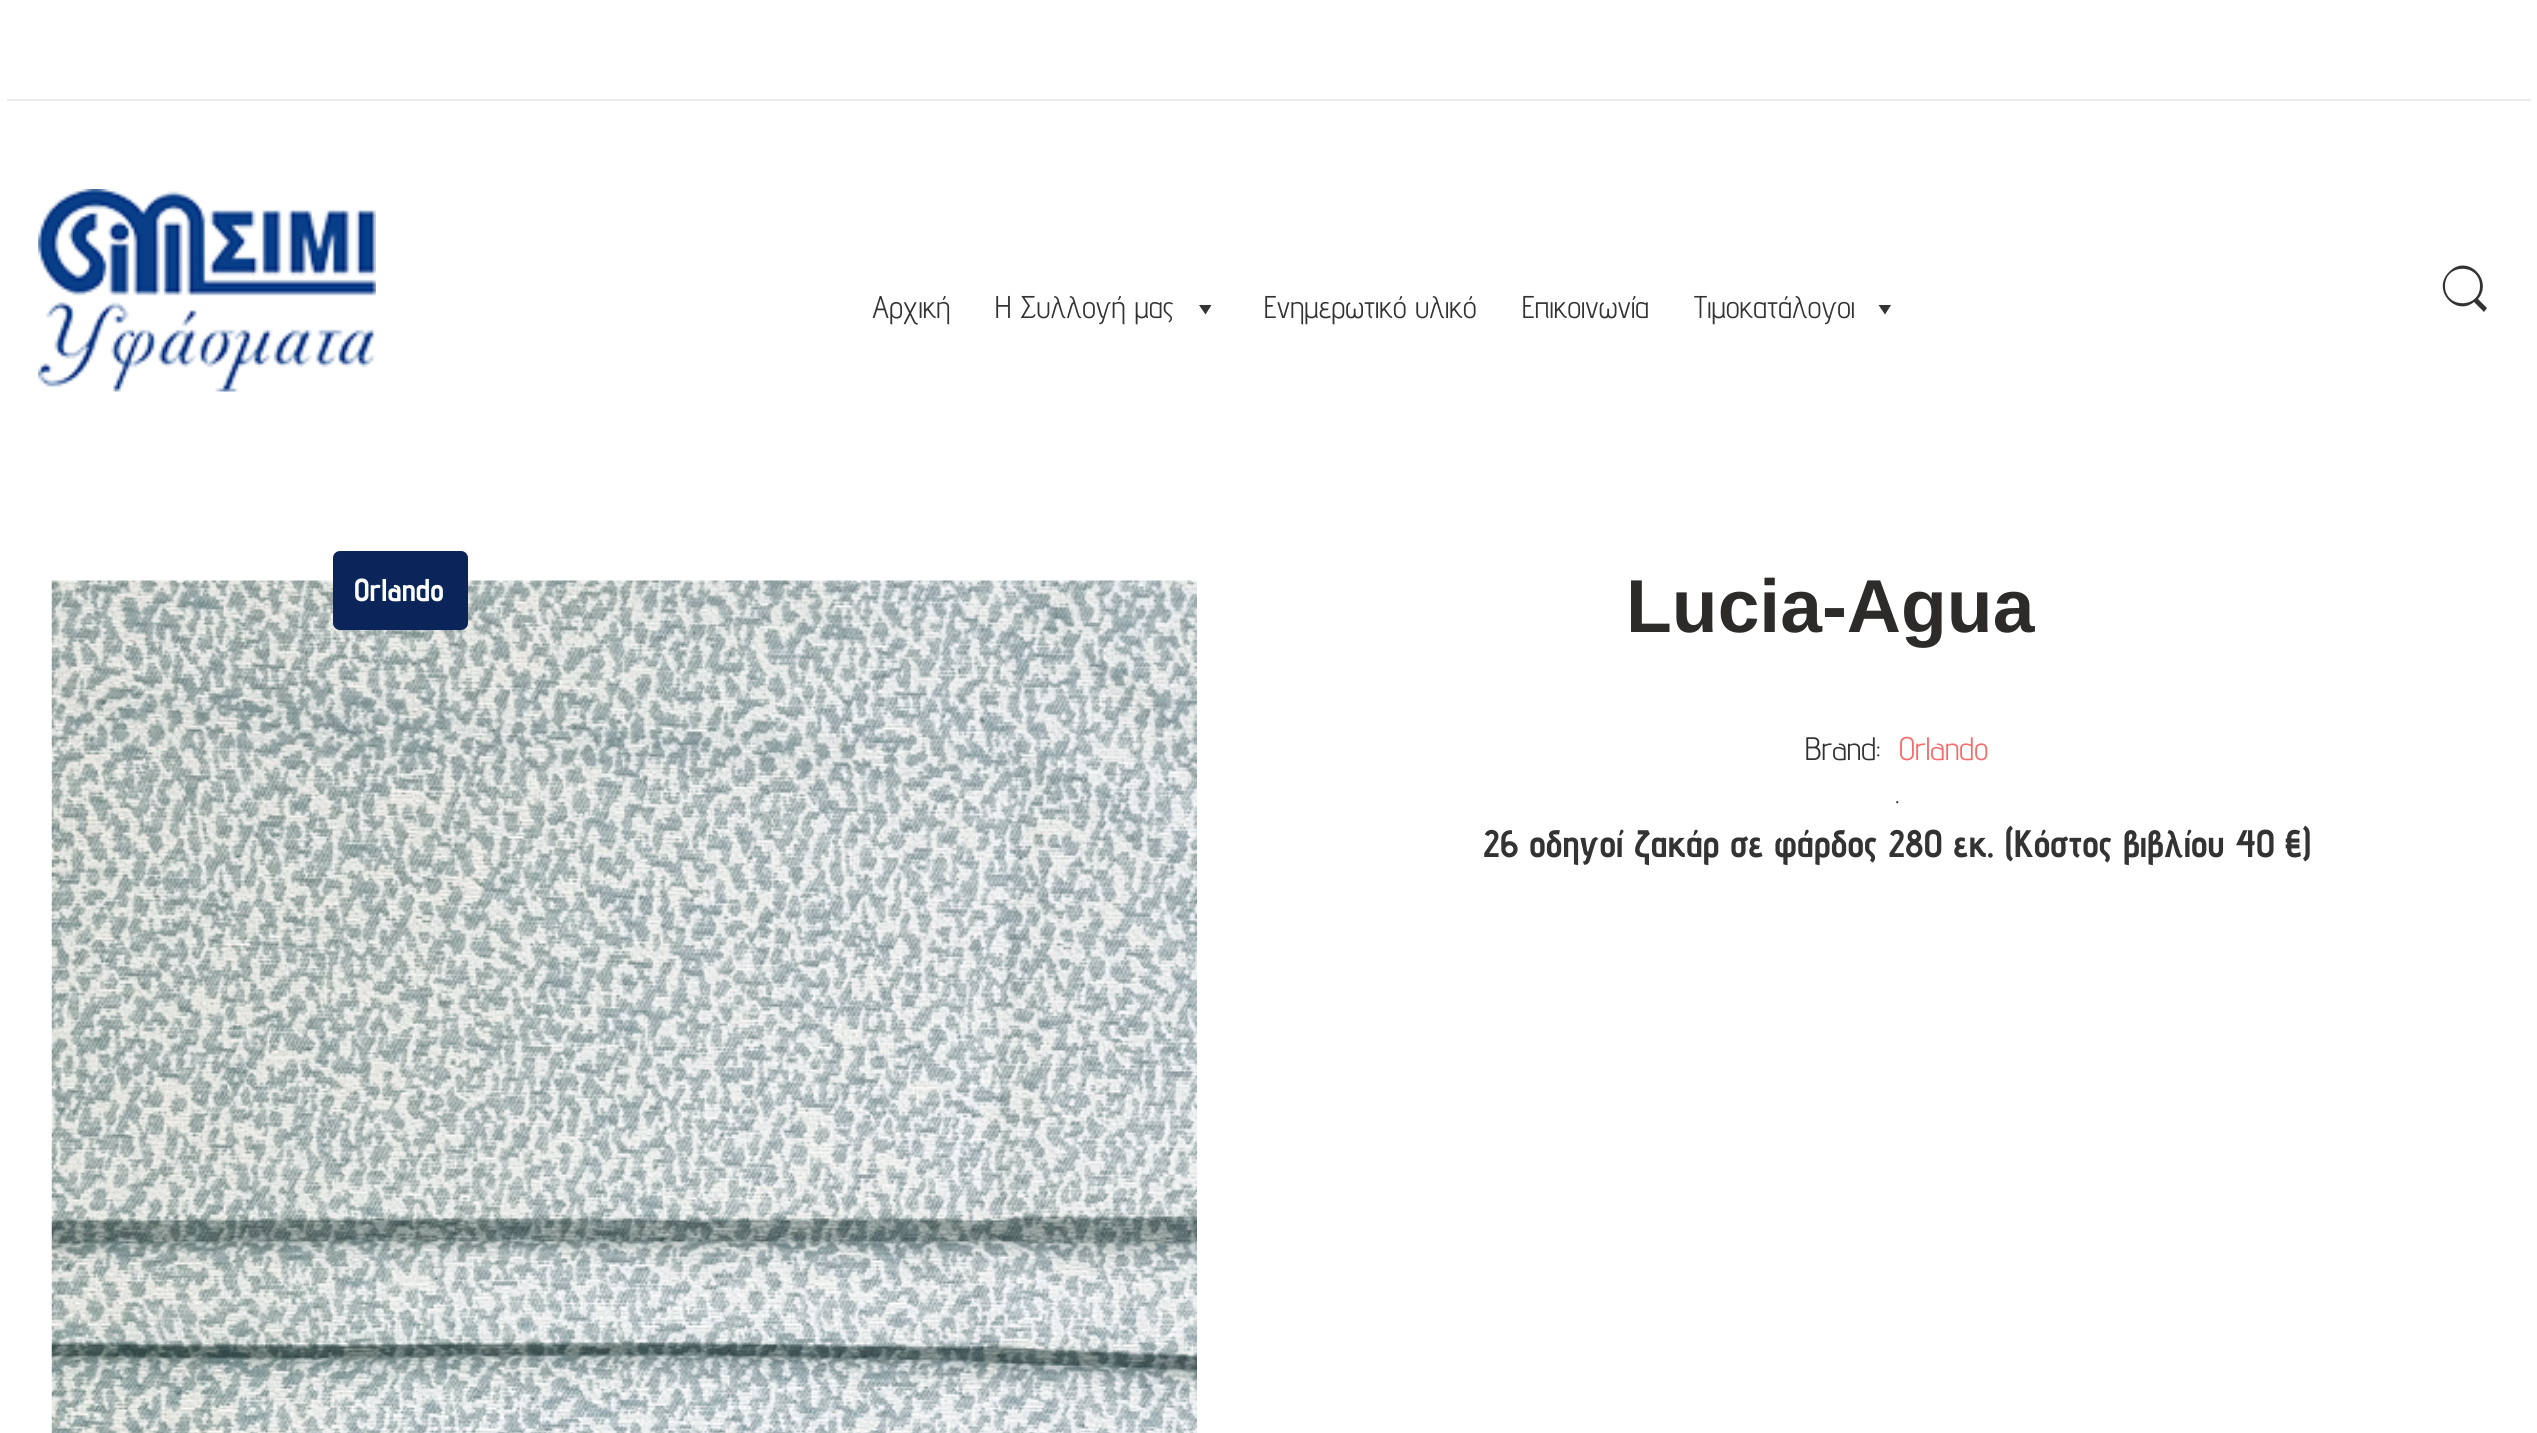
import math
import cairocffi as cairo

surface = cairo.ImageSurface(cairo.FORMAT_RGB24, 2537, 1433)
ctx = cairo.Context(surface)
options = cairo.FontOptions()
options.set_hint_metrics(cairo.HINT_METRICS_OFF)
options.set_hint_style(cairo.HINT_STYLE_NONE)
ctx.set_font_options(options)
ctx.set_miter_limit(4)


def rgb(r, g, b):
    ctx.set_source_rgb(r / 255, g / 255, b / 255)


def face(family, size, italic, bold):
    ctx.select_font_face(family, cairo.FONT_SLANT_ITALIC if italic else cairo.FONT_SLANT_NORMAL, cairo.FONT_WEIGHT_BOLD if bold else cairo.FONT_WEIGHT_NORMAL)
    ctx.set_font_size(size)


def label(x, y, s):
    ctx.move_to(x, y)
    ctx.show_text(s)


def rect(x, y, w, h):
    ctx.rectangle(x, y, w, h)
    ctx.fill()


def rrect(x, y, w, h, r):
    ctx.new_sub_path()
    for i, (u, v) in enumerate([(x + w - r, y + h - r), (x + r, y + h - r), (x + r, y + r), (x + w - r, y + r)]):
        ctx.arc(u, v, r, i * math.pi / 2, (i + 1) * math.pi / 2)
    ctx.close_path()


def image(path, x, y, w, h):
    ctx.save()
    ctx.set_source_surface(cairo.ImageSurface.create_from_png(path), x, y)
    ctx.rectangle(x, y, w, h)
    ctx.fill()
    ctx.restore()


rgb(255, 255, 255)
ctx.paint()
rgb(236, 236, 236)
rect(7, 99, 2524, 2)
image('image0.png', 38, 189, 338, 203)
face('Advent Pro', 31.5, 0, 0)
rgb(51, 51, 51)
label(872, 318, 'Αρχική')
label(995, 318, 'Η Συλλογή μας')
ctx.new_path()
ctx.move_to(1211.5, 305)
ctx.line_to(1205.5, 314.5)
ctx.line_to(1199, 305)
ctx.close_path()
ctx.fill()
label(1264, 318, 'Ενημερωτικό υλικό')
label(1522, 318, 'Επικοινωνία')
label(1694, 318, 'Τιμοκατάλογοι')
ctx.new_path()
ctx.move_to(1891, 305)
ctx.line_to(1885, 314.5)
ctx.line_to(1878.5, 305)
ctx.close_path()
ctx.fill()
ctx.new_path()
ctx.move_to(2487, 308)
ctx.line_to(2484, 312)
ctx.line_to(2474, 302)
ctx.curve_to(2456, 317, 2431, 290, 2449, 272)
ctx.curve_to(2467, 253, 2494, 280, 2478, 299)
ctx.close_path()
ctx.move_to(2445, 286)
ctx.curve_to(2445, 309, 2480, 309, 2480, 286)
ctx.curve_to(2480, 263, 2445, 263, 2445, 286)
ctx.close_path()
ctx.fill()
image('image1.png', 51, 580, 1146, 853)
rgb(11, 36, 89)
rrect(333, 551, 135, 79, 7)
ctx.fill()
face('Advent Pro', 31.5, 0, 1)
rgb(252, 255, 254)
label(354, 601, 'Orlando')
face('Liberation Sans', 75, 0, 1)
rgb(45, 42, 42)
label(1626, 632, 'Lucia-Agua')
face('Advent Pro', 32.5, 0, 0)
rgb(51, 51, 51)
label(1805, 760, 'Brand:')
rgb(247, 107, 106)
label(1899, 760, 'Orlando')
rgb(51, 51, 51)
label(1895, 803, '.')
face('Advent Pro', 38.25, 0, 1)
label(1483, 857, '26 οδηγοί ζακάρ σε φάρδος 280 εκ. (Κόστος βιβλίου 40 €)')
surface.write_to_png('render.png')
